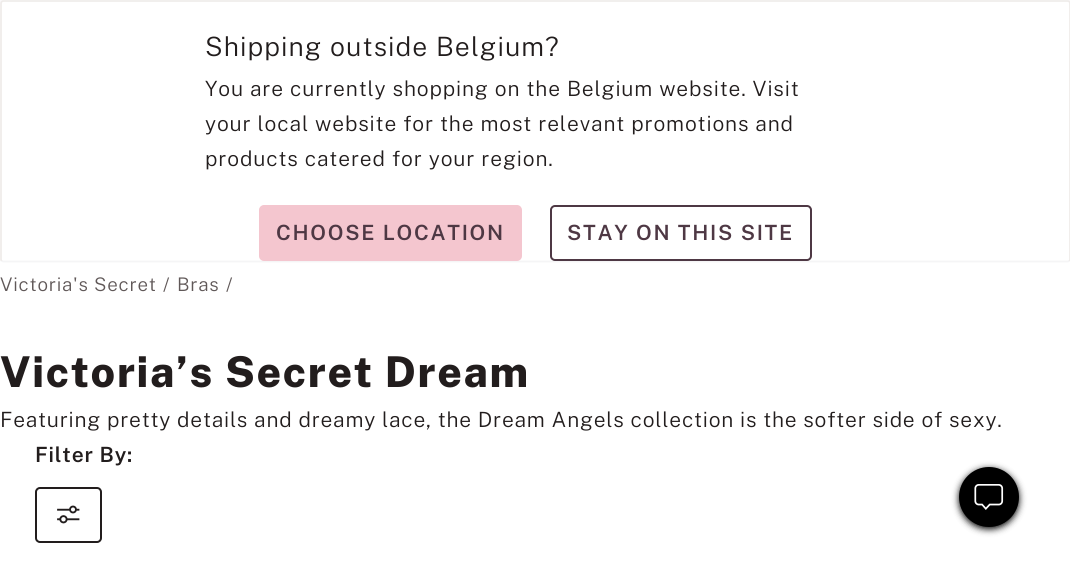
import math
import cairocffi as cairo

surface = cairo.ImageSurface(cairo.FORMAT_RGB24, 1070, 578)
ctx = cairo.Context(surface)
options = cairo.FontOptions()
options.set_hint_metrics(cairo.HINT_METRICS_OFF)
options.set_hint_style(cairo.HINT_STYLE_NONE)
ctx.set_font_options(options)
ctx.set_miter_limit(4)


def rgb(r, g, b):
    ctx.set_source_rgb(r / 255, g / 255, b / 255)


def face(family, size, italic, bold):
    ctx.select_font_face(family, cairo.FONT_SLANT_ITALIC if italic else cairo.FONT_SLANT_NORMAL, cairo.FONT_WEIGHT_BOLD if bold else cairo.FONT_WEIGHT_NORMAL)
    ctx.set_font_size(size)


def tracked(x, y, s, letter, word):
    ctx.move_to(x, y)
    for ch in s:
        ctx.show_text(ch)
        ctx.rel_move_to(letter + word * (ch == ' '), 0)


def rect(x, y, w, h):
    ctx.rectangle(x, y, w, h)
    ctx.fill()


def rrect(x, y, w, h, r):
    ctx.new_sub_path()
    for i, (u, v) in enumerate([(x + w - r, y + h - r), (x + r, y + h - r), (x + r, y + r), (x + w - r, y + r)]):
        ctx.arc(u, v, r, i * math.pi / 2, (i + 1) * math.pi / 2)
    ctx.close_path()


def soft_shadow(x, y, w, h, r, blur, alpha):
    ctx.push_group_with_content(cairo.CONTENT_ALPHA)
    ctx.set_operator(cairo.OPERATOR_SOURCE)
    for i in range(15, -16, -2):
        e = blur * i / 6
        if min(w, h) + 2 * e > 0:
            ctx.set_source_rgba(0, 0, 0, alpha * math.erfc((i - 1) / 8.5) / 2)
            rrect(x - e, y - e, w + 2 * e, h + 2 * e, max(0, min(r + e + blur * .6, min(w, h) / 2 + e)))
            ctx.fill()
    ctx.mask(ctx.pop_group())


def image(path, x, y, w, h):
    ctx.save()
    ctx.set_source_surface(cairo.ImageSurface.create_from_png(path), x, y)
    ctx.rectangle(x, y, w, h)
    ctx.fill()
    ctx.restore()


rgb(255, 255, 255)
ctx.paint()
rgb(249, 248, 249)
rect(0, 0, 1070, 4)
rgb(255, 255, 255)
rrect(0, 0, 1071, 263, 4)
ctx.fill()
ctx.new_path()
ctx.move_to(1069.5, 261)
ctx.line_to(1067.5, 261.5)
ctx.line_to(3.5, 261.5)
ctx.line_to(1.5, 261)
rgb(245, 245, 246)
ctx.set_line_width(1.8)
ctx.stroke()
ctx.new_path()
ctx.move_to(1.5, 261)
ctx.line_to(1, 259.5)
ctx.line_to(1, 3.5)
ctx.curve_to(1, 2, 2, 1, 3.5, 1)
ctx.line_to(1067.5, 1)
ctx.curve_to(1069, 1, 1070, 2, 1070, 3.5)
ctx.line_to(1070, 259.5)
ctx.line_to(1069.5, 261)
rgb(239, 236, 234)
ctx.stroke()
face('Public Sans Light', 26.6, 0, 0)
rgb(34, 29, 29)
tracked(205, 56, 'Shipping outside Belgium?', 1.05, 0)
face('Public Sans Light', 21, 0, 0)
tracked(205, 96, 'You are currently shopping on the Belgium website. Visit', 0.85, 0)
tracked(205, 131, 'your local website for the most relevant promotions and', 0.85, 0)
tracked(205, 166, 'products catered for your region.', 0.85, 0)
rgb(244, 198, 207)
rrect(260, 206, 261, 54, 4)
ctx.fill_preserve()
ctx.set_line_width(2)
ctx.stroke()
face('Public Sans SemiBold', 21, 0, 0)
rgb(78, 56, 68)
tracked(276, 240, 'CHOOSE LOCATION', 1.7, 0)
rgb(255, 255, 255)
rrect(551, 206, 260, 54, 4)
ctx.fill_preserve()
rgb(78, 56, 68)
ctx.stroke()
tracked(567, 240, 'STAY ON THIS SITE', 1.7, 0)
face('Public Sans Light', 18.75, 0, 0)
rgb(96, 88, 88)
tracked(0, 291, 'Victoria\'s Secret', 0.77, 0)
tracked(163, 291, '/', 0.77, 0)
tracked(177, 291, 'Bras', 0.77, 0)
tracked(226, 291, '/', 0.77, 0)
face('Public Sans ExtraBold', 42.5, 0, 0)
rgb(34, 29, 29)
tracked(0, 387, 'Victoria’s Secret Dream', 1.7, 0)
face('Public Sans Light', 21, 0, 0)
tracked(0, 427, 'Featuring pretty details and dreamy lace, the Dream Angels collection is the softer side of sexy.', 0.77, 0)
face('Public Sans SemiBold', 21, 0, 0)
tracked(35, 462, 'Filter By:', 0.85, 0)
rrect(36, 488, 65, 54, 4)
ctx.stroke()
image('image0.png', 57, 505, 23, 19)
rgb(0, 0, 0)
soft_shadow(959, 469, 60, 60, 30, 3.5, 1)
rgb(0, 0, 0)
ctx.arc(989, 497, 30, 0, 2 * math.pi)
ctx.fill()
image('image1.png', 974, 484, 30, 26)
surface.write_to_png('render.png')
